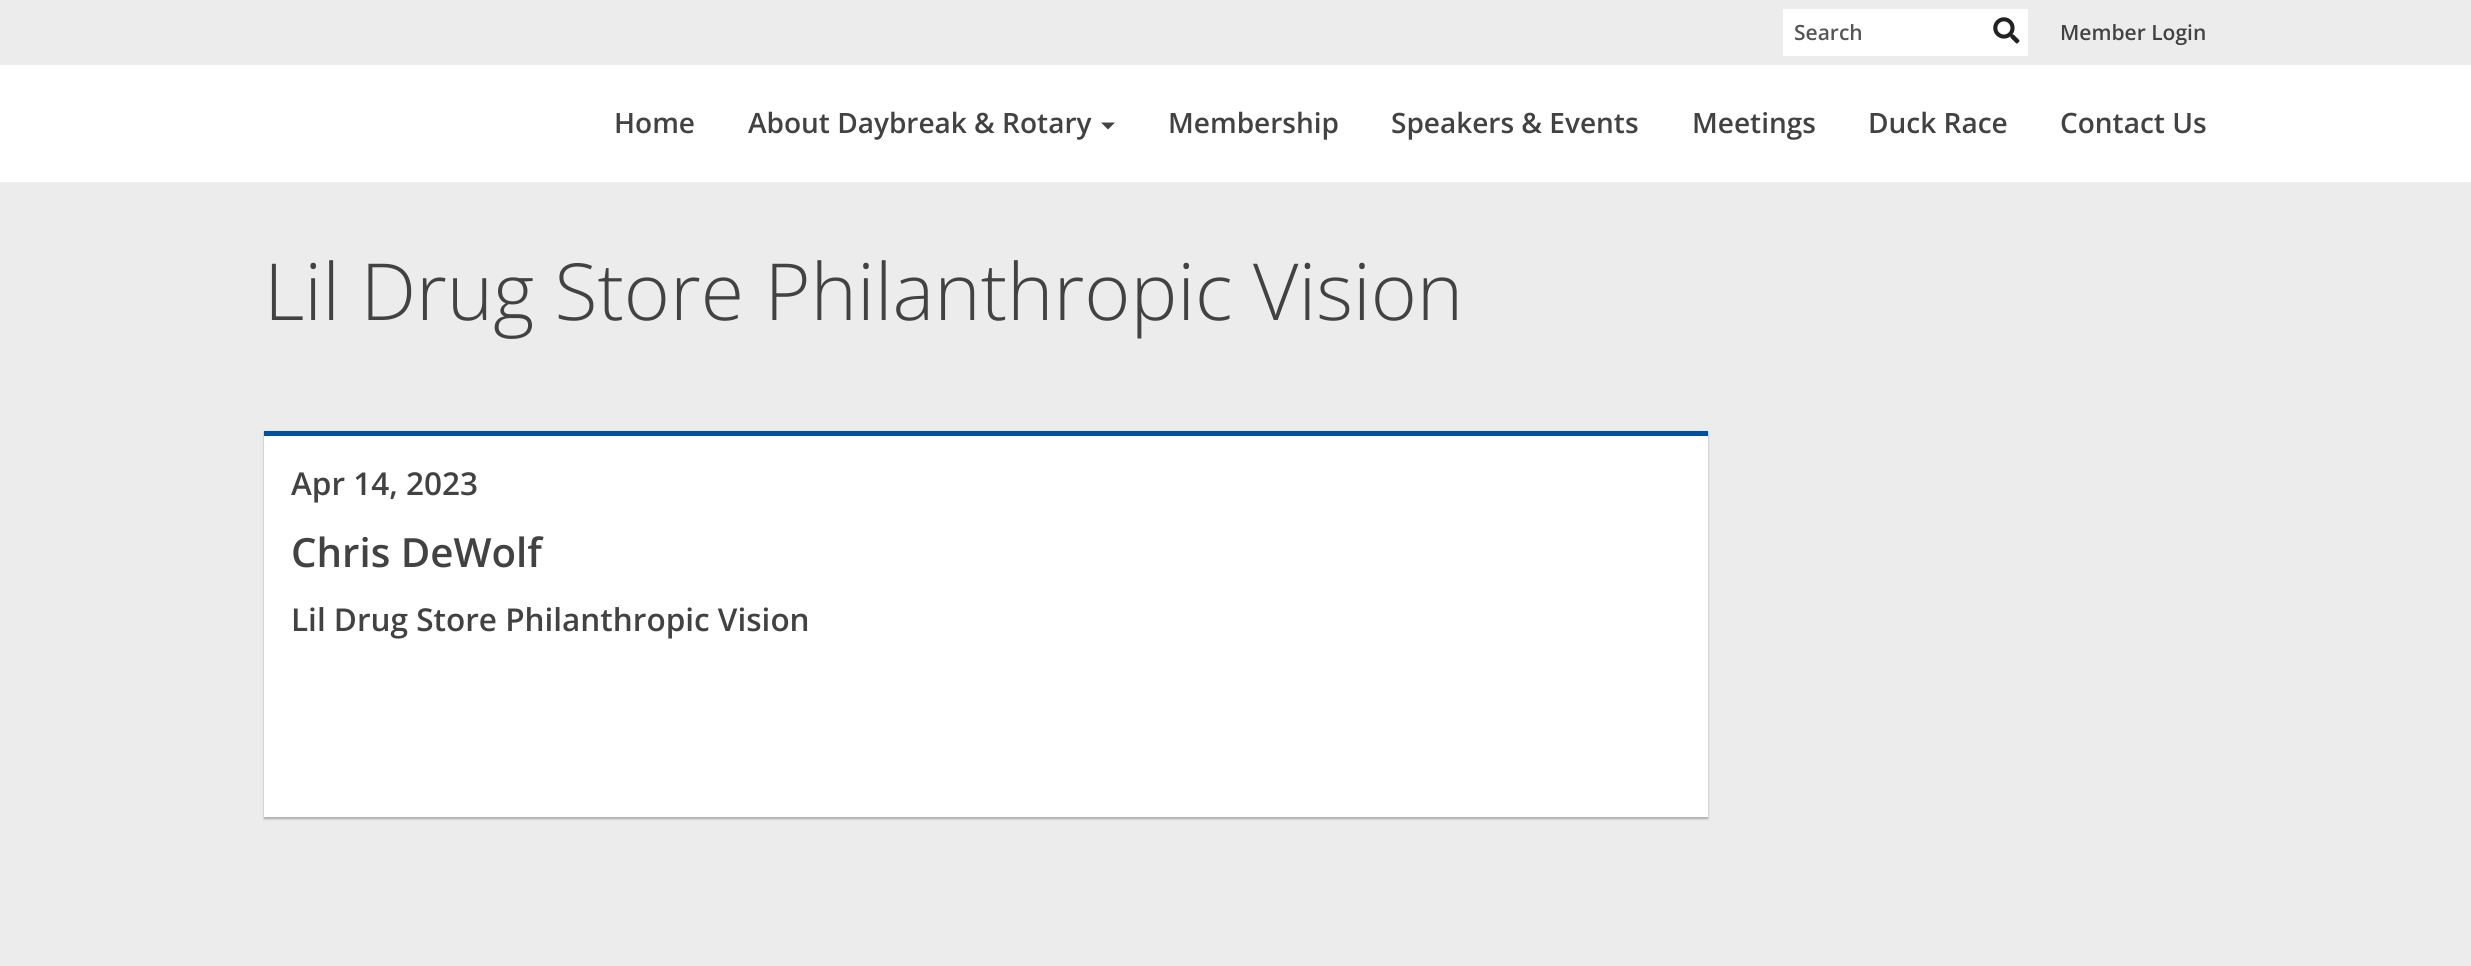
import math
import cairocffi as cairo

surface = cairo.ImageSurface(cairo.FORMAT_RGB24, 2471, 966)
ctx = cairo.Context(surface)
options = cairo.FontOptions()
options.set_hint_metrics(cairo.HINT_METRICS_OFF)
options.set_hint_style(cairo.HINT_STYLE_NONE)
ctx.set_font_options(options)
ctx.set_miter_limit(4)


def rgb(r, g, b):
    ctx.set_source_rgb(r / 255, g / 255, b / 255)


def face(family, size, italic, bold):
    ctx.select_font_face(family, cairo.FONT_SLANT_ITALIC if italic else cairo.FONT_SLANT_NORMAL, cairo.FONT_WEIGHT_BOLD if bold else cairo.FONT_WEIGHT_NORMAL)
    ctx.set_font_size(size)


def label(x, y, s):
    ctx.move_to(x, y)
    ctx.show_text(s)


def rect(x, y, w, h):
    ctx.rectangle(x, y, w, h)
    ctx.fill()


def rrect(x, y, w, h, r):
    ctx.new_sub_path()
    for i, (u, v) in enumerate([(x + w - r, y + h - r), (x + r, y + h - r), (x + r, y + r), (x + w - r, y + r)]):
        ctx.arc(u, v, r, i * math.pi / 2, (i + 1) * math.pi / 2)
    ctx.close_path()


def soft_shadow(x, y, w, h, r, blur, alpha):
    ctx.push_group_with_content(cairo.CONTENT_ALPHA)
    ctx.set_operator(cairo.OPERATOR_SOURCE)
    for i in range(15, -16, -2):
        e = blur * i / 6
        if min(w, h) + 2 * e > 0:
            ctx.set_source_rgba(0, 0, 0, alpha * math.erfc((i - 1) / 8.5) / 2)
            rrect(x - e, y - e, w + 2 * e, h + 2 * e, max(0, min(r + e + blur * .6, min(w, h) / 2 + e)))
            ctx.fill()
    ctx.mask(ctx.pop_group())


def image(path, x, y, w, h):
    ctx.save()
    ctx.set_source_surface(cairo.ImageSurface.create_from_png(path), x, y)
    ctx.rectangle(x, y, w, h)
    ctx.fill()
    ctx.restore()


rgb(236, 236, 236)
ctx.paint()
rgb(255, 255, 255)
rect(1783, 9, 245, 47)
face('Open Sans SemiBold', 21, 0, 0)
rgb(85, 85, 85)
label(1794, 40, 'Search')
image('image0.png', 1993, 17, 27, 27)
rgb(66, 66, 66)
label(2060, 40, 'Member Login')
rgb(255, 255, 255)
rect(0, 65, 2471, 117)
face('Open Sans SemiBold', 28, 0, 0)
rgb(66, 66, 66)
label(614, 133, 'Home')
label(748, 133, 'About Daybreak & Rotary')
ctx.new_path()
ctx.move_to(1101, 122.5)
ctx.line_to(1115, 122.5)
ctx.line_to(1108, 129.5)
ctx.close_path()
ctx.fill()
label(1168, 133, 'Membership')
label(1391, 133, 'Speakers & Events')
label(1692, 133, 'Meetings')
label(1868, 133, 'Duck Race')
label(2060, 133, 'Contact Us')
face('Open Sans Light', 78.75, 0, 0)
label(264, 320, 'Lil Drug Store Philanthropic Vision')
rgb(0, 0, 0)
soft_shadow(264, 432, 1444, 387, 0, 1, 0.15)
soft_shadow(264, 432, 1444, 387, 0, 1, 0.15)
rgb(255, 255, 255)
rect(264, 436, 1444, 381)
rgb(0, 80, 162)
rect(264, 431, 1444, 5)
face('Open Sans SemiBold', 31.5, 0, 0)
rgb(66, 66, 66)
label(291, 495, 'Apr 14, 2023')
face('Open Sans SemiBold', 40.25, 0, 0)
label(291, 567, 'Chris DeWolf')
face('Open Sans SemiBold', 31.5, 0, 0)
label(291, 631, 'Lil Drug Store Philanthropic Vision')
surface.write_to_png('render.png')
